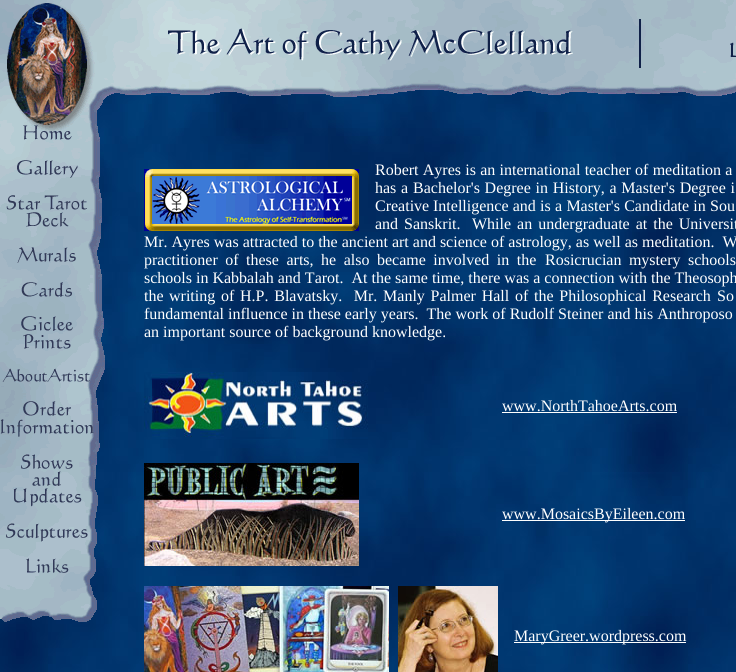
import math
import cairocffi as cairo

surface = cairo.ImageSurface(cairo.FORMAT_RGB24, 736, 672)
ctx = cairo.Context(surface)
options = cairo.FontOptions()
options.set_hint_metrics(cairo.HINT_METRICS_OFF)
options.set_hint_style(cairo.HINT_STYLE_NONE)
ctx.set_font_options(options)
ctx.set_miter_limit(4)


def rgb(r, g, b):
    ctx.set_source_rgb(r / 255, g / 255, b / 255)


def face(family, size, italic, bold):
    ctx.select_font_face(family, cairo.FONT_SLANT_ITALIC if italic else cairo.FONT_SLANT_NORMAL, cairo.FONT_WEIGHT_BOLD if bold else cairo.FONT_WEIGHT_NORMAL)
    ctx.set_font_size(size)


def label(x, y, s):
    ctx.move_to(x, y)
    ctx.show_text(s)


def tracked(x, y, s, letter, word):
    ctx.move_to(x, y)
    for ch in s:
        ctx.show_text(ch)
        ctx.rel_move_to(letter + word * (ch == ' '), 0)


def rect(x, y, w, h):
    ctx.rectangle(x, y, w, h)
    ctx.fill()


def image(path, x, y, w, h):
    ctx.save()
    ctx.set_source_surface(cairo.ImageSurface.create_from_png(path), x, y)
    ctx.rectangle(x, y, w, h)
    ctx.fill()
    ctx.restore()


rgb(255, 255, 255)
ctx.paint()
image('image0.png', 0, 90, 736, 582)
image('image1.png', 0, 0, 736, 622)
image('image2.png', 144, 169, 215, 62)
face('Liberation Serif', 16, 0, 0)
rgb(255, 255, 255)
tracked(375, 175, 'Robert Ayres is an international teacher of meditation a', 0, 0.25)
tracked(375, 193, 'has a', 0, 0.75)
tracked(413, 193, 'Bachelor\'s Degree in History, a Master\'s Degree i', 0, 0.75)
label(375, 211, 'Creative')
tracked(433, 211, 'Intelligence and is a Master\'s Candidate in Sou', 0, 0.25)
tracked(375, 229, 'and Sanskrit.', 0, 2)
tracked(472, 229, 'While an undergraduate at the Universit', 0, 2)
label(144, 247, 'Mr. Ayres was attracted to the ancient art and science of astrology, as well as meditation.  W')
tracked(144, 265, 'practitioner of these arts, he also became involved in the', 0, 3.5)
tracked(545, 265, 'Rosicrucian mystery schools', 0, 3.5)
label(144, 283, 'schools in Kabbalah and Tarot.  At the same time, there was a connection with the Theosoph')
label(144, 301, 'the')
tracked(169, 301, 'writing of H.P. Blavatsky.  Mr. Manly Palmer Hall of the Philosophical Research', 0, 1.75)
tracked(717, 301, 'So', 0, 2)
label(144, 319, 'fundamental influence in these early years.  The work of Rudolf Steiner and his Anthroposo')
label(144, 337, 'an important source of background knowledge.')
image('image3.png', 144, 372, 224, 67)
label(502, 411, 'www.NorthTahoeArts.com')
rect(502, 412, 175, 1)
image('image4.png', 144, 463, 215, 103)
rect(502, 520, 183, 1)
label(502, 519, 'www.MosaicsByEileen.com')
image('image5.png', 144, 586, 245, 86)
image('image6.png', 398, 586, 100, 86)
rect(514, 642, 172, 1)
label(514, 641, 'MaryGreer.wordpress.com')
surface.write_to_png('render.png')
